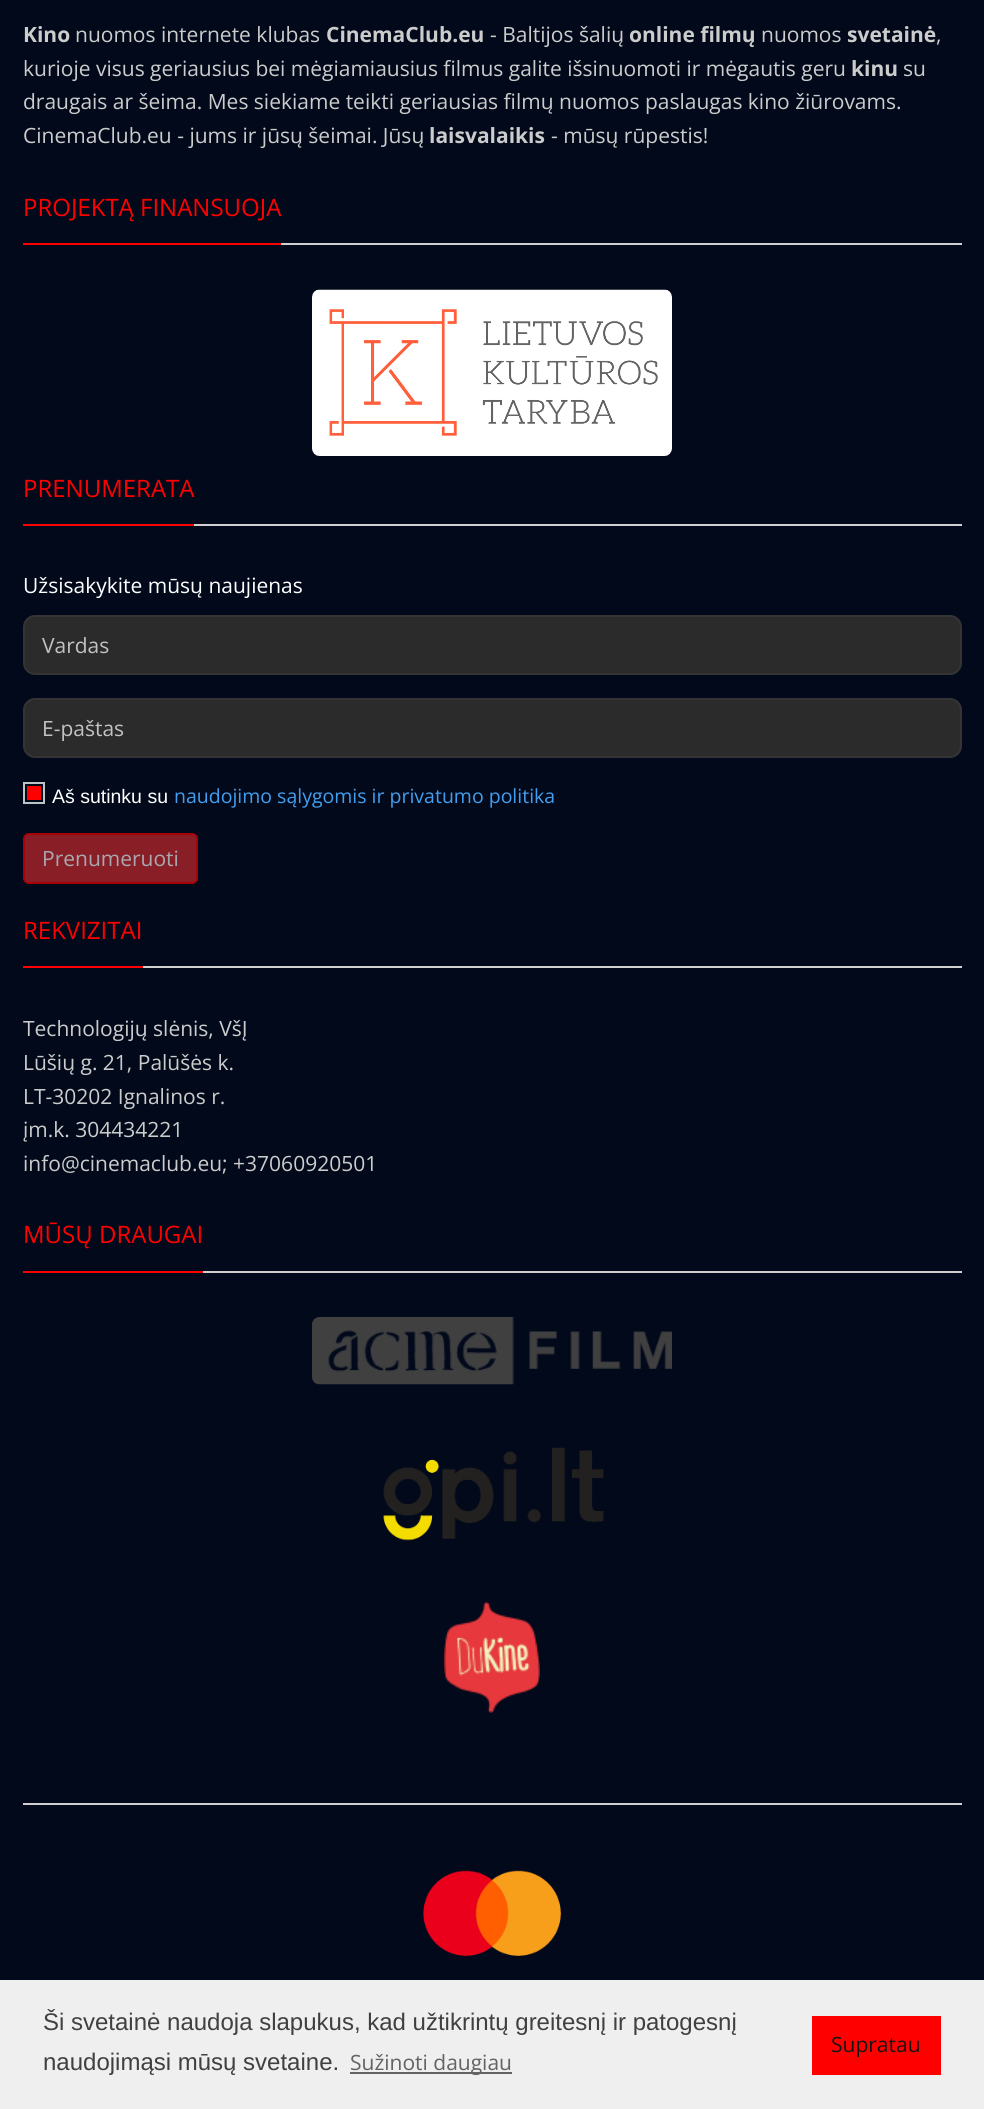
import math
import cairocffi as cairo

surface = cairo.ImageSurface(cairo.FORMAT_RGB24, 984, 2109)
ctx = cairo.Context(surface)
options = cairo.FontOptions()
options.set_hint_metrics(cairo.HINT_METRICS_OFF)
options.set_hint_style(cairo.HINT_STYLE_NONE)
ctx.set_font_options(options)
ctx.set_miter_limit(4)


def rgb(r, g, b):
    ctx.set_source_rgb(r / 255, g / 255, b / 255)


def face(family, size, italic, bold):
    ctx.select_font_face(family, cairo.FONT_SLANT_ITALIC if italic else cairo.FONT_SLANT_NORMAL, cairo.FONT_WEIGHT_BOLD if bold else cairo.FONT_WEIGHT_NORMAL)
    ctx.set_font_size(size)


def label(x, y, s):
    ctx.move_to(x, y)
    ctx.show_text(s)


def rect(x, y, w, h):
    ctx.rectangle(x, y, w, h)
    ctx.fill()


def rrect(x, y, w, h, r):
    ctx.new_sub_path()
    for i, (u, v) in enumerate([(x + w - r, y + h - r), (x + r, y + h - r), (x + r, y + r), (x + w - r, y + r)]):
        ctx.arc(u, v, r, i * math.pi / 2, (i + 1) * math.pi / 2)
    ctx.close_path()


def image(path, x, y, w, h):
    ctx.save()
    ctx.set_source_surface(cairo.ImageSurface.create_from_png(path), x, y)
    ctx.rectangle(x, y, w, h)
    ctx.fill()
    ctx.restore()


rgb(1, 9, 26)
ctx.paint()
face('Open Sans', 21, 0, 1)
rgb(204, 204, 204)
label(23, 42, 'Kino')
face('Open Sans', 21, 0, 0)
label(75, 42, 'nuomos internete klubas')
face('Open Sans', 21, 0, 1)
label(326, 42, 'CinemaClub.eu')
face('Open Sans', 21, 0, 0)
label(490, 42, '- Baltijos šalių')
face('Open Sans', 21, 0, 1)
label(629, 42, 'online filmų')
face('Open Sans', 21, 0, 0)
label(761, 42, 'nuomos')
face('Open Sans', 21, 0, 1)
label(847, 42, 'svetainė')
face('Open Sans', 21, 0, 0)
label(936, 42, ',')
label(23, 76, 'kurioje visus geriausius bei mėgiamiausius filmus galite išsinuomoti ir mėgautis geru')
face('Open Sans', 21, 0, 1)
label(851, 76, 'kinu')
face('Open Sans', 21, 0, 0)
label(903, 76, 'su')
label(23, 109, 'draugais ar šeima. Mes siekiame teikti geriausias filmų nuomos paslaugas kino žiūrovams.')
label(23, 143, 'CinemaClub.eu - jums ir jūsų šeimai. Jūsų')
face('Open Sans', 21, 0, 1)
label(429, 143, 'laisvalaikis')
face('Open Sans', 21, 0, 0)
label(551, 143, '- mūsų rūpestis!')
rgb(255, 0, 0)
rect(23, 243, 258, 2)
face('Open Sans', 24, 0, 0)
label(23, 216, 'PROJEKTĄ FINANSUOJA')
rgb(208, 208, 208)
rect(281, 243, 681, 2)
image('image0.png', 312, 289, 360, 167)
rgb(255, 0, 0)
rect(23, 524, 171, 2)
label(23, 497, 'PRENUMERATA')
rgb(208, 208, 208)
rect(194, 524, 768, 2)
face('Open Sans', 21, 0, 0)
rgb(255, 255, 255)
label(23, 593, 'Užsisakykite mūsų naujienas')
rgb(43, 43, 43)
rrect(24, 616, 937, 58, 11)
ctx.fill_preserve()
rgb(52, 52, 52)
ctx.stroke()
rgb(194, 194, 194)
label(42, 653, 'Vardas')
rgb(43, 43, 43)
rrect(24, 699, 937, 58, 11)
ctx.fill_preserve()
rgb(52, 52, 52)
ctx.stroke()
rgb(194, 194, 194)
label(42, 736, 'E-paštas')
ctx.rectangle(24, 783, 20, 20)
rgb(189, 195, 199)
ctx.stroke()
rgb(255, 0, 0)
rect(27, 786, 14, 14)
face('Liberation Sans', 19.5, 0, 0)
rgb(255, 255, 255)
label(52, 803, 'Aš sutinku su')
face('Open Sans', 19.5, 0, 0)
rgb(66, 159, 239)
label(174, 803, 'naudojimo sąlygomis ir privatumo politika')
rgb(138, 30, 39)
rrect(24, 834, 173, 49, 5)
ctx.fill_preserve()
rgb(166, 3, 9)
ctx.stroke()
face('Open Sans', 21, 0, 0)
rgb(166, 169, 175)
label(42, 866, 'Prenumeruoti')
rgb(255, 0, 0)
rect(23, 966, 120, 2)
face('Open Sans', 24, 0, 0)
label(23, 939, 'REKVIZITAI')
rgb(208, 208, 208)
rect(143, 966, 819, 2)
face('Open Sans', 21, 0, 0)
rgb(204, 204, 204)
label(23, 1036, 'Technologijų slėnis, VšĮ')
label(23, 1070, 'Lūšių g. 21, Palūšės k.')
label(23, 1104, 'LT-30202 Ignalinos r.')
label(23, 1137, 'įm.k. 304434221')
label(23, 1171, 'info@cinemaclub.eu; +37060920501')
rgb(255, 0, 0)
rect(23, 1271, 180, 2)
face('Open Sans', 24, 0, 0)
label(23, 1243, 'MŪSŲ DRAUGAI')
rgb(208, 208, 208)
rect(203, 1271, 759, 2)
image('image1.png', 312, 1317, 360, 68)
image('image2.png', 383, 1447, 221, 94)
image('image3.png', 444, 1602, 96, 111)
rect(23, 1803, 939, 2)
image('image4.png', 423, 1870, 138, 86)
rgb(239, 239, 239)
rect(0, 1980, 984, 129)
face('Liberation Sans', 24, 0, 0)
rgb(64, 64, 64)
label(43, 2030, 'Ši svetainė naudoja slapukus, kad užtikrintų greitesnį ir patogesnį')
label(43, 2070, 'naudojimąsi mūsų svetaine.')
rgb(99, 99, 99)
rect(350, 2072, 162, 2)
face('Open Sans', 21, 0, 0)
label(350, 2070, 'Sužinoti daugiau')
rgb(255, 0, 0)
rect(812, 2016, 129, 59)
rgb(21, 21, 21)
label(831, 2052, 'Supratau')
surface.write_to_png('render.png')
